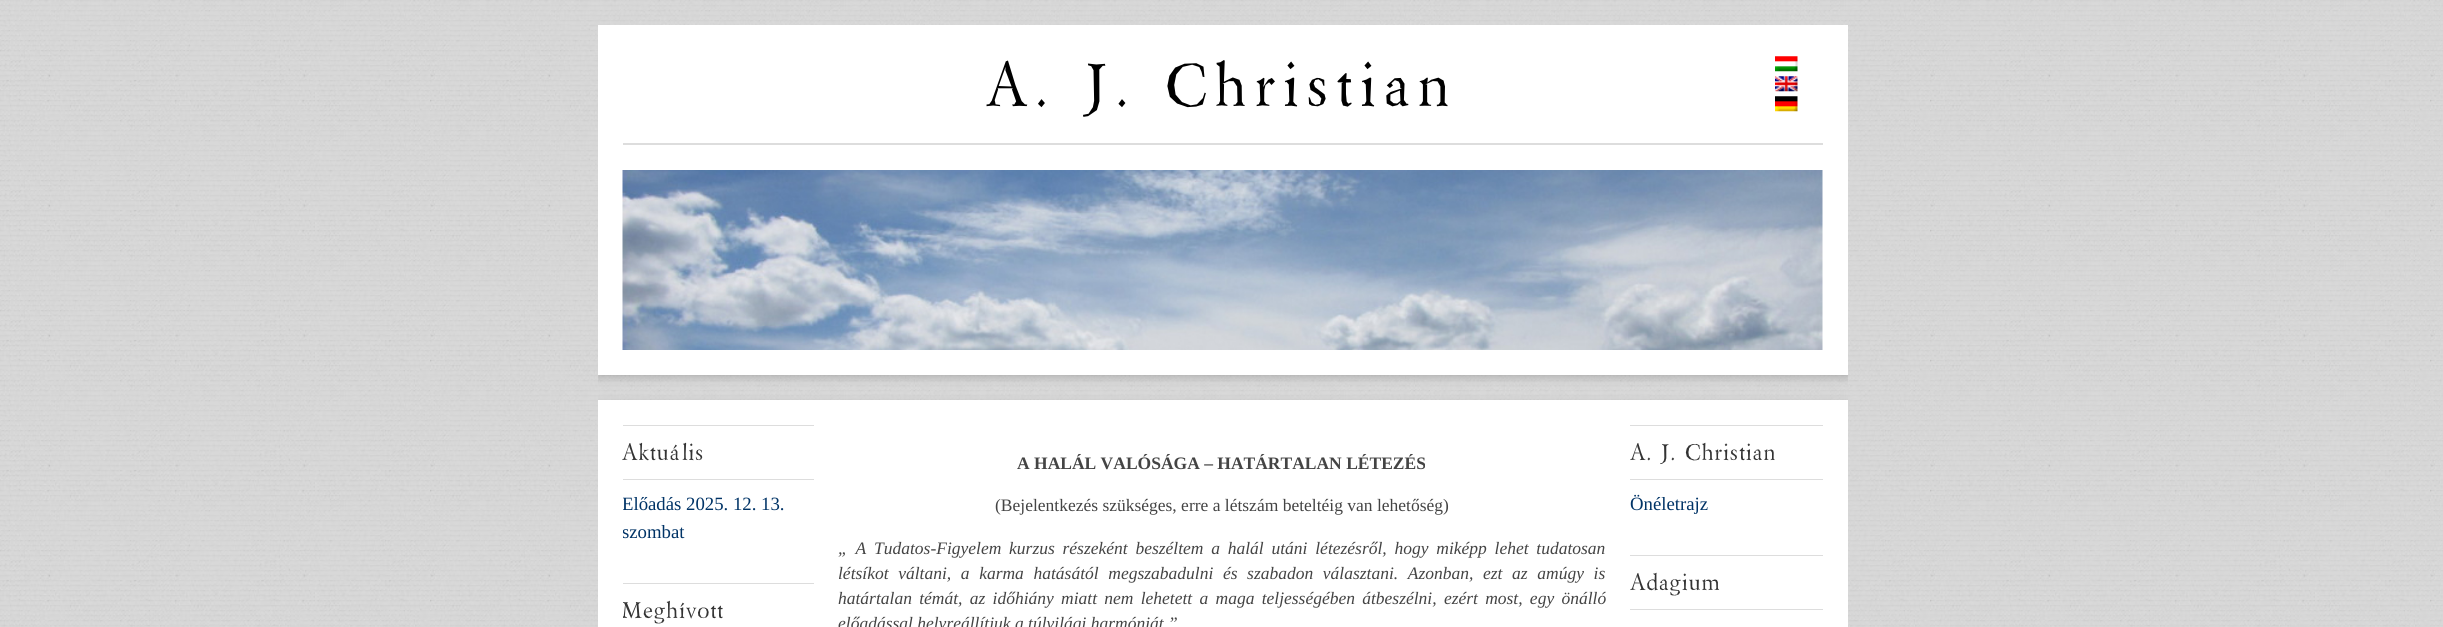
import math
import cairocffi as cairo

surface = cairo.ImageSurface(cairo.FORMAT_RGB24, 2443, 627)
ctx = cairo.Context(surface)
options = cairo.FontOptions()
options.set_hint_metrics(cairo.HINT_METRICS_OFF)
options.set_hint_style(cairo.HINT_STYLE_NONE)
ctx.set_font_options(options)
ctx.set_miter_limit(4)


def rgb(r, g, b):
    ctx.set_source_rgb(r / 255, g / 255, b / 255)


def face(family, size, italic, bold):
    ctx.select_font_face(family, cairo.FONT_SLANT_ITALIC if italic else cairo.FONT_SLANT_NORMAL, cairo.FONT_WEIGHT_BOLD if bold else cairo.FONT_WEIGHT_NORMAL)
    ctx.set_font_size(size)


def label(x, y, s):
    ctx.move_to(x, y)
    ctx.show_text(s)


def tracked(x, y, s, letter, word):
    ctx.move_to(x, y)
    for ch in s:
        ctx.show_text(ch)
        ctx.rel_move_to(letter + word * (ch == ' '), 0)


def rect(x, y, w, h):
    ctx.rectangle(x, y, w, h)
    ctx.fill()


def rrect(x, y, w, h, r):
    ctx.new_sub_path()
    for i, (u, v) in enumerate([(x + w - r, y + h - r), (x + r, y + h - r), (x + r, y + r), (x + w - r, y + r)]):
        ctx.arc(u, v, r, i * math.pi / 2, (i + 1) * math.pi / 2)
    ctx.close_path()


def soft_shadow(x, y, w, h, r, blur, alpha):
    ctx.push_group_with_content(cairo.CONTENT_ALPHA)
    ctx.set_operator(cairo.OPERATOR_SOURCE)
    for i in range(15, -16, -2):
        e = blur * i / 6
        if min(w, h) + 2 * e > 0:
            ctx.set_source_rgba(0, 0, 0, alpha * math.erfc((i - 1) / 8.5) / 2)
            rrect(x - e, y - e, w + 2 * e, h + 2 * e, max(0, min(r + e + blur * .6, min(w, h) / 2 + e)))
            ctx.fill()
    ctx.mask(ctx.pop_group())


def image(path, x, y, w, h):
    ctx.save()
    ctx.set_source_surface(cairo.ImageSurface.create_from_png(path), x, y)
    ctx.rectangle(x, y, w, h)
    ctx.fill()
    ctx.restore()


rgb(255, 255, 255)
ctx.paint()
image('image0.png', 0, 0, 2443, 627)
ctx.save()
ctx.rectangle(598, 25, 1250, 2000)
ctx.clip()
rgb(100, 100, 100)
soft_shadow(598, 28, 1250, 350, 0, 4, 0.3)
ctx.restore()
rgb(255, 255, 255)
rect(598, 25, 1250, 350)
face('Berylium', 60, 0, 0)
rgb(0, 0, 0)
tracked(986, 106, 'A. J. Christian', 8.75, 0)
image('image1.png', 1775, 56, 23, 16)
image('image2.png', 1775, 76, 23, 16)
image('image3.png', 1775, 96, 23, 16)
rgb(221, 221, 221)
rect(623, 143, 1200, 2)
image('image4.png', 622, 170, 1201, 180)
ctx.save()
ctx.rectangle(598, 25, 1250, 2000)
ctx.clip()
rgb(100, 100, 100)
soft_shadow(598, 403, 1250, 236, 0, 4, 0.3)
ctx.restore()
rgb(255, 255, 255)
rect(598, 400, 1250, 227)
rgb(221, 221, 221)
rect(623, 425, 191, 1)
rect(623, 479, 191, 1)
face('Berylium', 22.5, 0, 0)
rgb(51, 51, 51)
tracked(622, 460, 'Aktuális', 1.25, 0)
ctx.save()
ctx.rectangle(623, 425, 191, 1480)
ctx.clip()
face('Liberation Serif', 18.75, 0, 0)
rgb(0, 51, 102)
label(622, 510, 'Előadás 2025. 12. 13.')
label(622, 538, 'szombat')
ctx.restore()
rgb(221, 221, 221)
rect(623, 583, 191, 1)
ctx.save()
ctx.rectangle(623, 425, 191, 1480)
ctx.clip()
rgb(51, 51, 51)
tracked(622, 618, 'Meghívott', 1.25, 0)
ctx.restore()
face('Liberation Serif', 17.5, 0, 1)
rgb(68, 68, 68)
label(1017, 469, 'A HALÁL VALÓSÁGA – HATÁRTALAN LÉTEZÉS')
face('Liberation Serif', 17.5, 0, 0)
label(995, 511, '(Bejelentkezés szükséges, erre a létszám beteltéig van lehetőség)')
face('Liberation Serif', 17.5, 1, 0)
tracked(838, 554, '„ A Tudatos-Figyelem kurzus részeként beszéltem a halál utáni létezésről, hogy miképp lehet tudatosan', 0, 3.4)
tracked(838, 579, 'létsíkot váltani, a karma hatásától megszabadulni és szabadon választani. Azonban, ezt az amúgy is', 0, 5.25)
tracked(838, 604, 'határtalan témát, az időhiány miatt nem lehetett a maga teljességében átbeszélni, ezért most, egy önálló', 0, 2.9)
label(838, 629, 'előadással helyreállítjuk a túlvilági harmóniát.”')
rgb(221, 221, 221)
rect(1630, 425, 193, 1)
rect(1630, 479, 193, 1)
face('Berylium', 22.5, 0, 0)
rgb(51, 51, 51)
tracked(1630, 460, 'A. J. Christian', 1.25, 0)
face('Liberation Serif', 18.75, 0, 0)
rgb(0, 51, 102)
label(1630, 510, 'Önéletrajz')
rgb(221, 221, 221)
rect(1630, 555, 193, 1)
rect(1630, 609, 193, 1)
face('Berylium', 22.5, 0, 0)
rgb(51, 51, 51)
tracked(1630, 590, 'Adagium', 1.25, 0)
surface.write_to_png('render.png')
